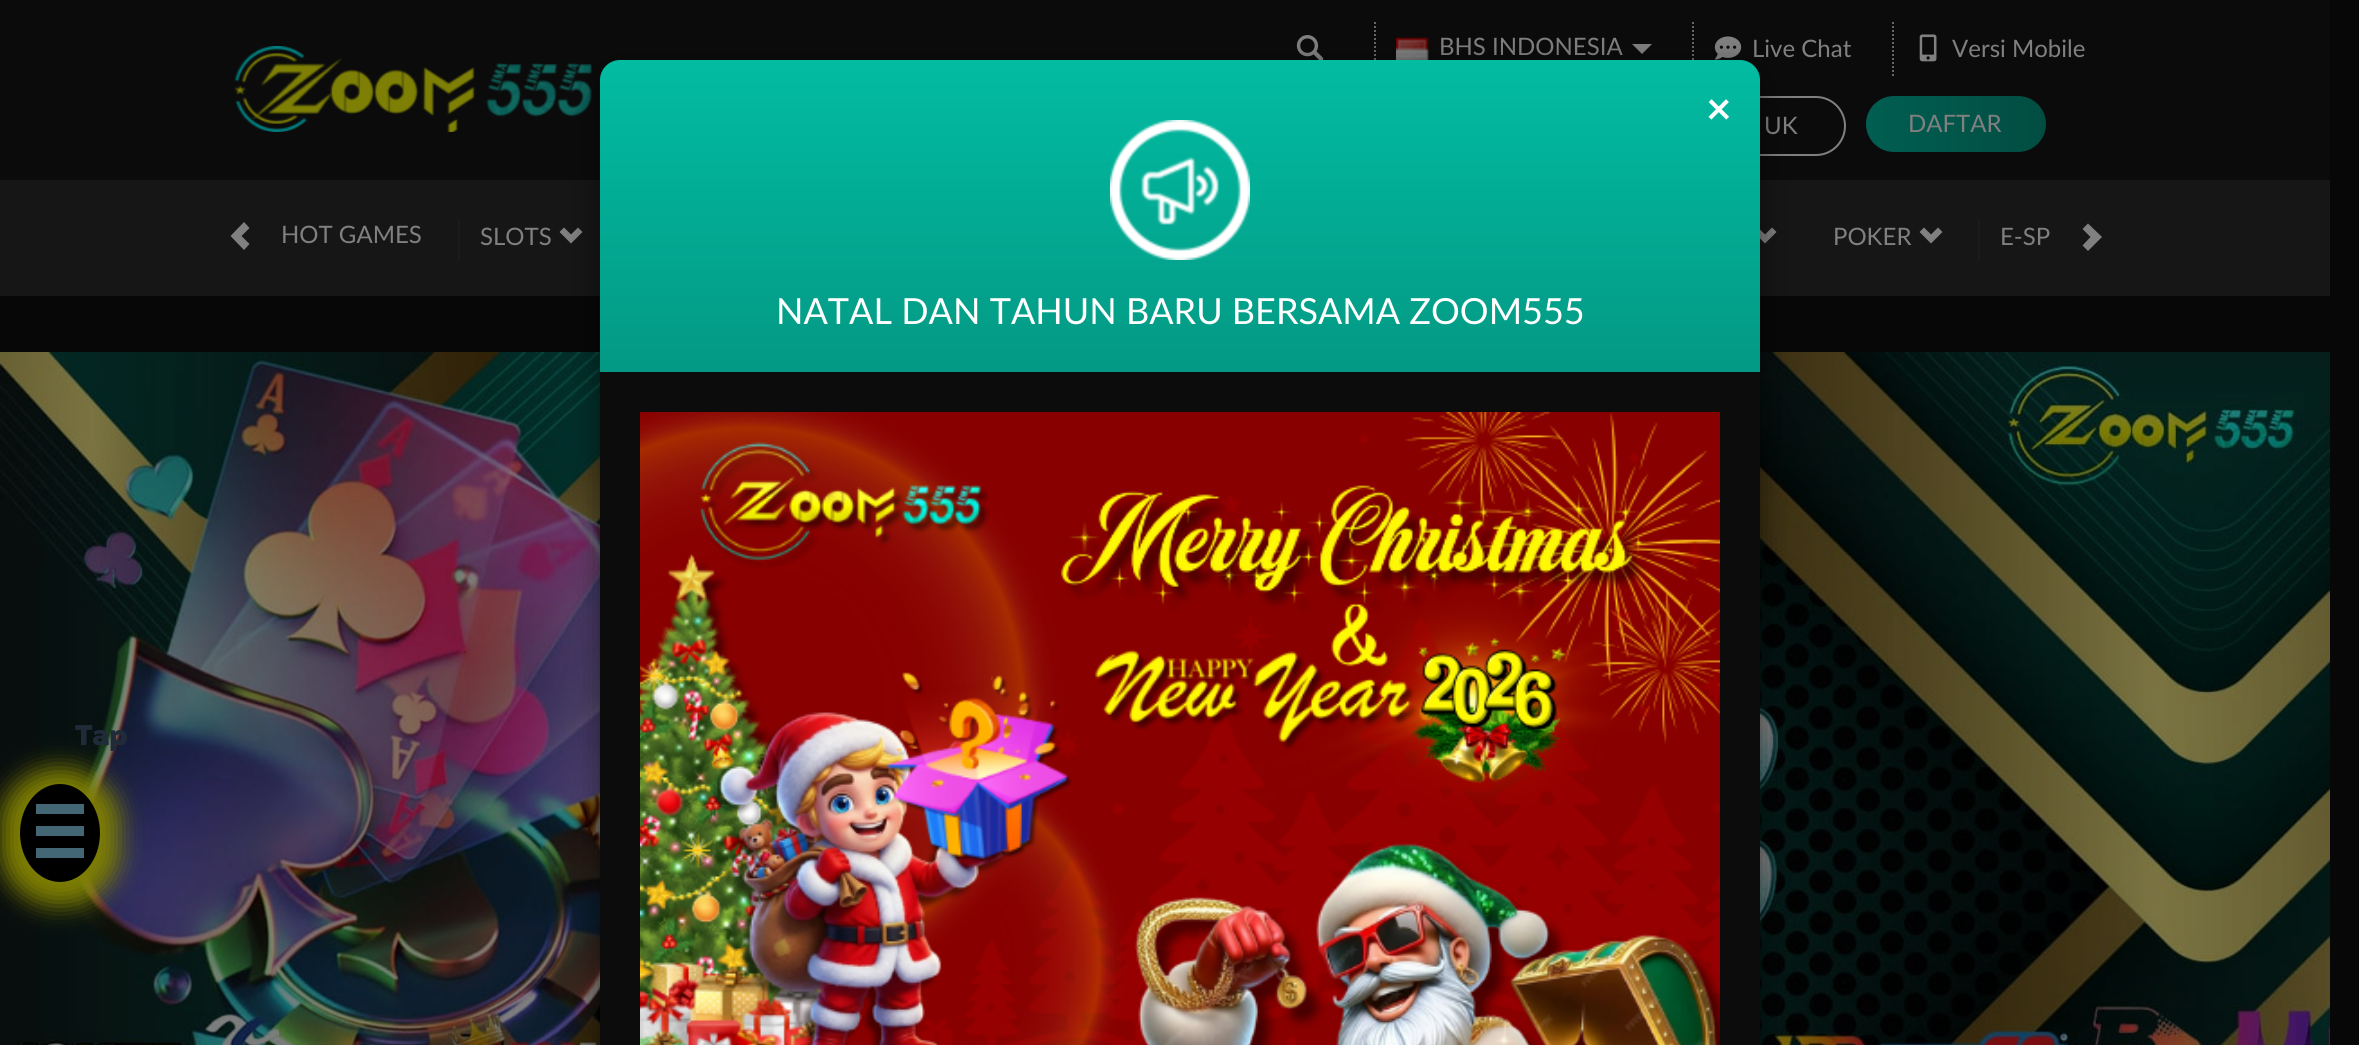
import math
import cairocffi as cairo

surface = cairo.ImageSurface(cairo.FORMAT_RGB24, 2359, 1045)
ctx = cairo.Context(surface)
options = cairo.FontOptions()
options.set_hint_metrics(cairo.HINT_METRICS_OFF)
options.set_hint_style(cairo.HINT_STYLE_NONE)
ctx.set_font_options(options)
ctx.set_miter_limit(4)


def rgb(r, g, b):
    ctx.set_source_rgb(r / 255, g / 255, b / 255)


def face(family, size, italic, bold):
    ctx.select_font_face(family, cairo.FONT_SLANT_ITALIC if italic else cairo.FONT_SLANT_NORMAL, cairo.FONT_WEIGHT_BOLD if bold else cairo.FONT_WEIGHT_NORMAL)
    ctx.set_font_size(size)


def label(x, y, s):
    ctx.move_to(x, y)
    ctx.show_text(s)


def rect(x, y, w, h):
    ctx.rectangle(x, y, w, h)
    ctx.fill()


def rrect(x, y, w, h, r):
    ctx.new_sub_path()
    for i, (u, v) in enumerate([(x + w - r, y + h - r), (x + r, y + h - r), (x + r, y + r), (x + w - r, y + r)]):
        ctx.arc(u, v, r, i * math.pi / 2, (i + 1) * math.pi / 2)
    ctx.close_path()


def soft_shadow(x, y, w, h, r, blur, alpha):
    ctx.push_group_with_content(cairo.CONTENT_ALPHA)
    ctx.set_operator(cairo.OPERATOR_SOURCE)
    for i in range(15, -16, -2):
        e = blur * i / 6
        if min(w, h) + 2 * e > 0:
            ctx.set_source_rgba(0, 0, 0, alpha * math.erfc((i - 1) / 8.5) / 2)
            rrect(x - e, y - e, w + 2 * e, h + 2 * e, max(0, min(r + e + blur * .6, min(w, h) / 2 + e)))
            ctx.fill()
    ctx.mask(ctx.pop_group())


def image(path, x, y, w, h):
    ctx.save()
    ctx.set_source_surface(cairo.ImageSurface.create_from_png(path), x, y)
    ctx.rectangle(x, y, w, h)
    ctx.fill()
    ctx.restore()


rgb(7, 7, 7)
ctx.paint()
rgb(11, 11, 11)
rect(0, 0, 2330, 180)
image('image0.png', 234, 46, 358, 86)
image('image1.png', 1296, 35, 28, 25)
ctx.new_path()
ctx.move_to(1375, 22)
ctx.line_to(1375, 76)
rgb(102, 102, 102)
ctx.set_dash([2, 2])
ctx.stroke()
image('image2.png', 1396, 37, 33, 23)
face('Lato', 24, 0, 0)
rgb(128, 128, 128)
label(1439, 55, 'BHS INDONESIA')
ctx.new_path()
ctx.move_to(1632, 44)
ctx.line_to(1652, 44)
ctx.line_to(1642, 54)
ctx.close_path()
ctx.fill()
ctx.new_path()
ctx.move_to(1693, 22)
ctx.line_to(1693, 76)
rgb(102, 102, 102)
ctx.stroke()
image('image3.png', 1714, 36, 28, 24)
rgb(128, 128, 128)
label(1752, 57, 'Live Chat')
ctx.new_path()
ctx.move_to(1893, 22)
ctx.line_to(1893, 76)
rgb(102, 102, 102)
ctx.stroke()
image('image4.png', 1919, 34, 18, 28)
rgb(128, 128, 128)
label(1952, 57, 'Versi Mobile')
rrect(1667, 97, 178, 58, 29)
ctx.set_dash([])
ctx.stroke()
label(1764, 134, 'UK')
gradient = cairo.LinearGradient(1866, 124, 2046, 124)
gradient.add_color_stop_rgba(0, 0.004, 0.369, 0.318, 1)
gradient.add_color_stop_rgba(1, 0.008, 0.302, 0.259, 1)
ctx.set_source(gradient)
rrect(1866, 96, 180, 56, 28)
ctx.fill()
rgb(128, 128, 128)
label(1908, 132, 'DAFTAR')
rgb(23, 22, 22)
rect(0, 180, 2330, 116)
rgb(128, 128, 128)
ctx.new_path()
ctx.move_to(244, 250)
ctx.line_to(249.5, 244)
ctx.line_to(241.5, 236)
ctx.line_to(249.5, 228)
ctx.line_to(244, 222)
ctx.line_to(230.5, 236)
ctx.close_path()
ctx.fill()
label(281, 243, 'HOT GAMES')
rgb(27, 27, 27)
rect(458, 220, 2, 40)
rgb(128, 128, 128)
label(480, 245, 'SLOTS')
ctx.new_path()
ctx.move_to(571, 243.5)
ctx.line_to(582.5, 232)
ctx.line_to(578, 227.5)
ctx.line_to(571, 234.5)
ctx.line_to(564, 227.5)
ctx.line_to(559.5, 232)
ctx.close_path()
ctx.fill()
ctx.new_path()
ctx.move_to(1765, 243.5)
ctx.line_to(1776.5, 232)
ctx.line_to(1772, 227.5)
ctx.line_to(1765, 234.5)
ctx.line_to(1758, 227.5)
ctx.line_to(1753.5, 232)
ctx.close_path()
ctx.fill()
label(1833, 245, 'POKER')
ctx.new_path()
ctx.move_to(1931, 243.5)
ctx.line_to(1942.5, 232)
ctx.line_to(1938, 227.5)
ctx.line_to(1931, 234.5)
ctx.line_to(1924, 227.5)
ctx.line_to(1919.5, 232)
ctx.close_path()
ctx.fill()
rgb(27, 27, 27)
rect(1978, 220, 2, 40)
rgb(128, 128, 128)
label(2000, 245, 'E-SP')
ctx.new_path()
ctx.move_to(2088, 251)
ctx.line_to(2082.5, 245.5)
ctx.line_to(2090.5, 237)
ctx.line_to(2082.5, 229)
ctx.line_to(2088, 223.5)
ctx.line_to(2102, 237)
ctx.close_path()
ctx.fill()
image('image7.png', 0, 352, 2330, 693)
rgb(0, 0, 0)
soft_shadow(600, 70, 1160, 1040, 20, 15, 0.5)
gradient = cairo.LinearGradient(1180, 60, 1180, 372)
gradient.add_color_stop_rgba(0, 0.008, 0.737, 0.635, 1)
gradient.add_color_stop_rgba(1, 0.012, 0.6, 0.518, 1)
ctx.set_source(gradient)
ctx.new_path()
ctx.move_to(620, 60)
ctx.line_to(1740, 60)
ctx.curve_to(1751, 60, 1760, 69, 1760, 80)
ctx.line_to(1760, 372)
ctx.line_to(600, 372)
ctx.line_to(600, 80)
ctx.curve_to(600, 69, 609, 60, 620, 60)
ctx.close_path()
ctx.fill()
face('Lato', 42, 0, 1)
rgb(255, 255, 255)
label(1706, 124, '×')
image('image5.png', 1110, 120, 140, 140)
face('Lato', 36, 0, 0)
label(776, 324, 'NATAL DAN TAHUN BARU BERSAMA ZOOM555')
rgb(12, 12, 12)
rect(600, 372, 1160, 673)
image('image6.png', 640, 412, 1080, 633)
face('Raleway Thin', 28, 0, 0)
rgb(32, 43, 57)
label(75, 745, 'Tap')
rgb(126, 126, 2)
soft_shadow(0, 768, 120, 138, 60, 12, 1)
rgb(0, 0, 0)
ctx.new_path()
ctx.move_to(60, 784)
ctx.curve_to(82, 784, 100, 806, 100, 833)
ctx.curve_to(100, 860, 82, 882, 60, 882)
ctx.curve_to(38, 882, 20, 860, 20, 833)
ctx.curve_to(20, 806, 38, 784, 60, 784)
ctx.close_path()
ctx.fill()
rgb(68, 103, 118)
rect(36, 804, 48, 10)
rect(36, 826, 48, 10)
rect(36, 848, 48, 10)
surface.write_to_png('render.png')
